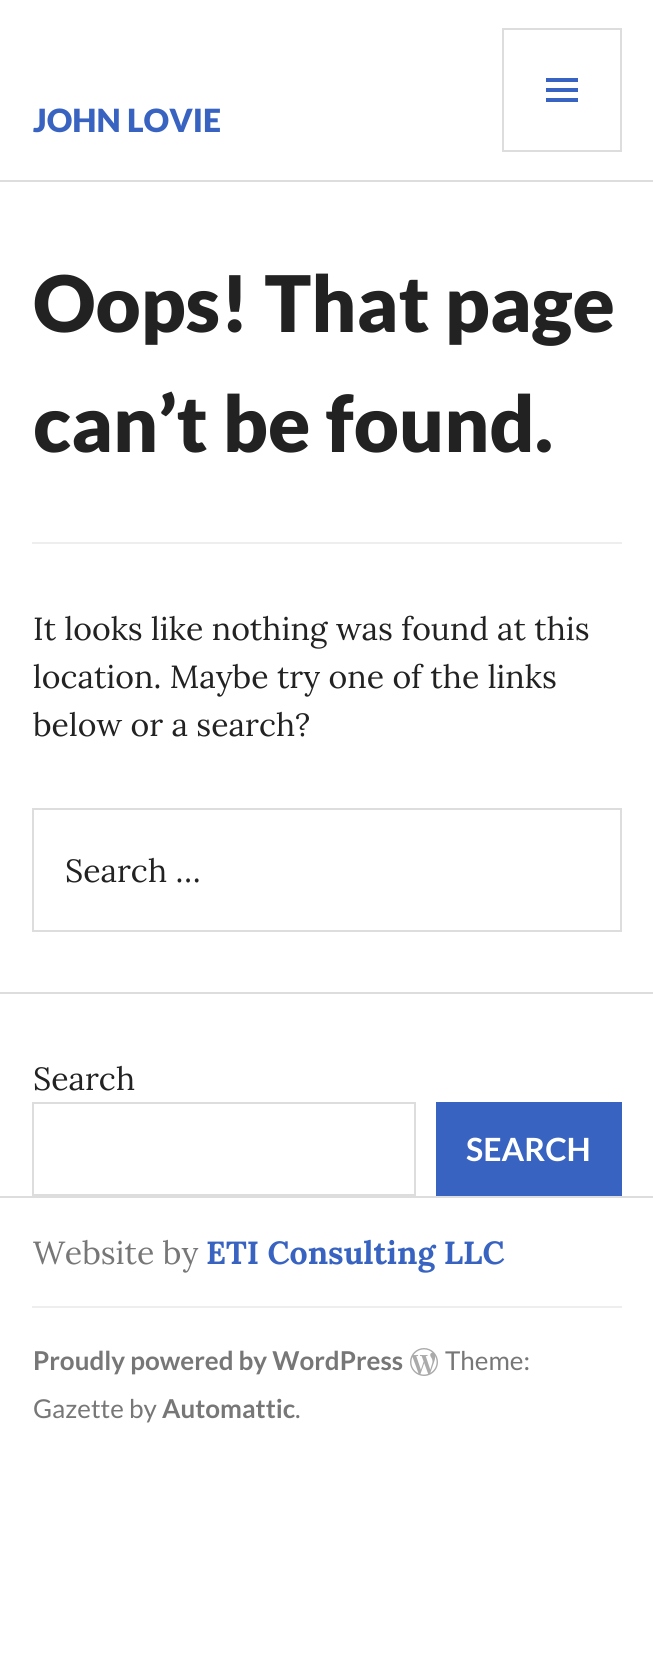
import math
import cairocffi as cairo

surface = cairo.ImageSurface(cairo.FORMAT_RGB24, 653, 1666)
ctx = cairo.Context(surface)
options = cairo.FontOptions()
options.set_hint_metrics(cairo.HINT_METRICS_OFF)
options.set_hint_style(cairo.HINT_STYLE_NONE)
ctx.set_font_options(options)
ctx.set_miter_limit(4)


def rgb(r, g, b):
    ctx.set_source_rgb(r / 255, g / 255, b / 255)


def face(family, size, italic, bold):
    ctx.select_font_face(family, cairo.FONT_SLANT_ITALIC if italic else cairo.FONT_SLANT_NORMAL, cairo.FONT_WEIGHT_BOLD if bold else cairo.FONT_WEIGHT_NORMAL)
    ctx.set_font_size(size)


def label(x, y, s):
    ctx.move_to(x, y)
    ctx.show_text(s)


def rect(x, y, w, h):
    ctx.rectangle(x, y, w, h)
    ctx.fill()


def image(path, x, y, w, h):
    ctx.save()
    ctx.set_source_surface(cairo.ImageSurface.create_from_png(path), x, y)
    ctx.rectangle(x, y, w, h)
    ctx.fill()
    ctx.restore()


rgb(255, 255, 255)
ctx.paint()
rgb(221, 221, 221)
rect(0, 180, 653, 2)
face('Lato Black', 32, 0, 0)
rgb(56, 99, 193)
label(33, 132, 'JOHN LOVIE')
ctx.rectangle(503, 29, 118, 122)
rgb(221, 221, 221)
ctx.stroke()
image('image0.png', 546, 78, 32, 24)
rgb(238, 238, 238)
rect(32, 542, 590, 2)
face('Lato Black', 78, 0, 0)
rgb(34, 34, 34)
label(33, 332, 'Oops! That page')
label(33, 452, 'can’t be found.')
face('Lora', 32, 0, 0)
label(33, 640, 'It looks like nothing was found at this')
label(33, 688, 'location. Maybe try one of the links')
label(33, 736, 'below or a search?')
ctx.rectangle(33, 809, 588, 122)
rgb(221, 221, 221)
ctx.stroke()
rgb(34, 34, 34)
label(65, 882, 'Search …')
rgb(221, 221, 221)
rect(0, 992, 653, 2)
rgb(34, 34, 34)
label(33, 1090, 'Search')
ctx.rectangle(33, 1103, 382, 92)
rgb(221, 221, 221)
ctx.stroke()
rgb(56, 99, 193)
rect(436, 1102, 186, 94)
face('Lato', 32, 0, 1)
rgb(255, 255, 255)
label(466, 1161, 'SEARCH')
rgb(221, 221, 221)
rect(0, 1196, 653, 2)
rgb(238, 238, 238)
rect(32, 1306, 590, 2)
face('Lora', 32, 0, 0)
rgb(119, 119, 119)
label(33, 1264, 'Website by')
face('Lora', 32, 0, 1)
rgb(56, 99, 193)
label(206, 1264, 'ETI Consulting LLC')
face('Lato', 26, 0, 1)
rgb(119, 119, 119)
label(33, 1370, 'Proudly powered by WordPress')
image('image1.png', 410, 1348, 28, 28)
face('Lato', 26, 0, 0)
label(445, 1370, 'Theme:')
label(33, 1418, 'Gazette by')
face('Lato', 26, 0, 1)
label(162, 1418, 'Automattic')
face('Lato', 26, 0, 0)
label(295, 1418, '.')
surface.write_to_png('render.png')
